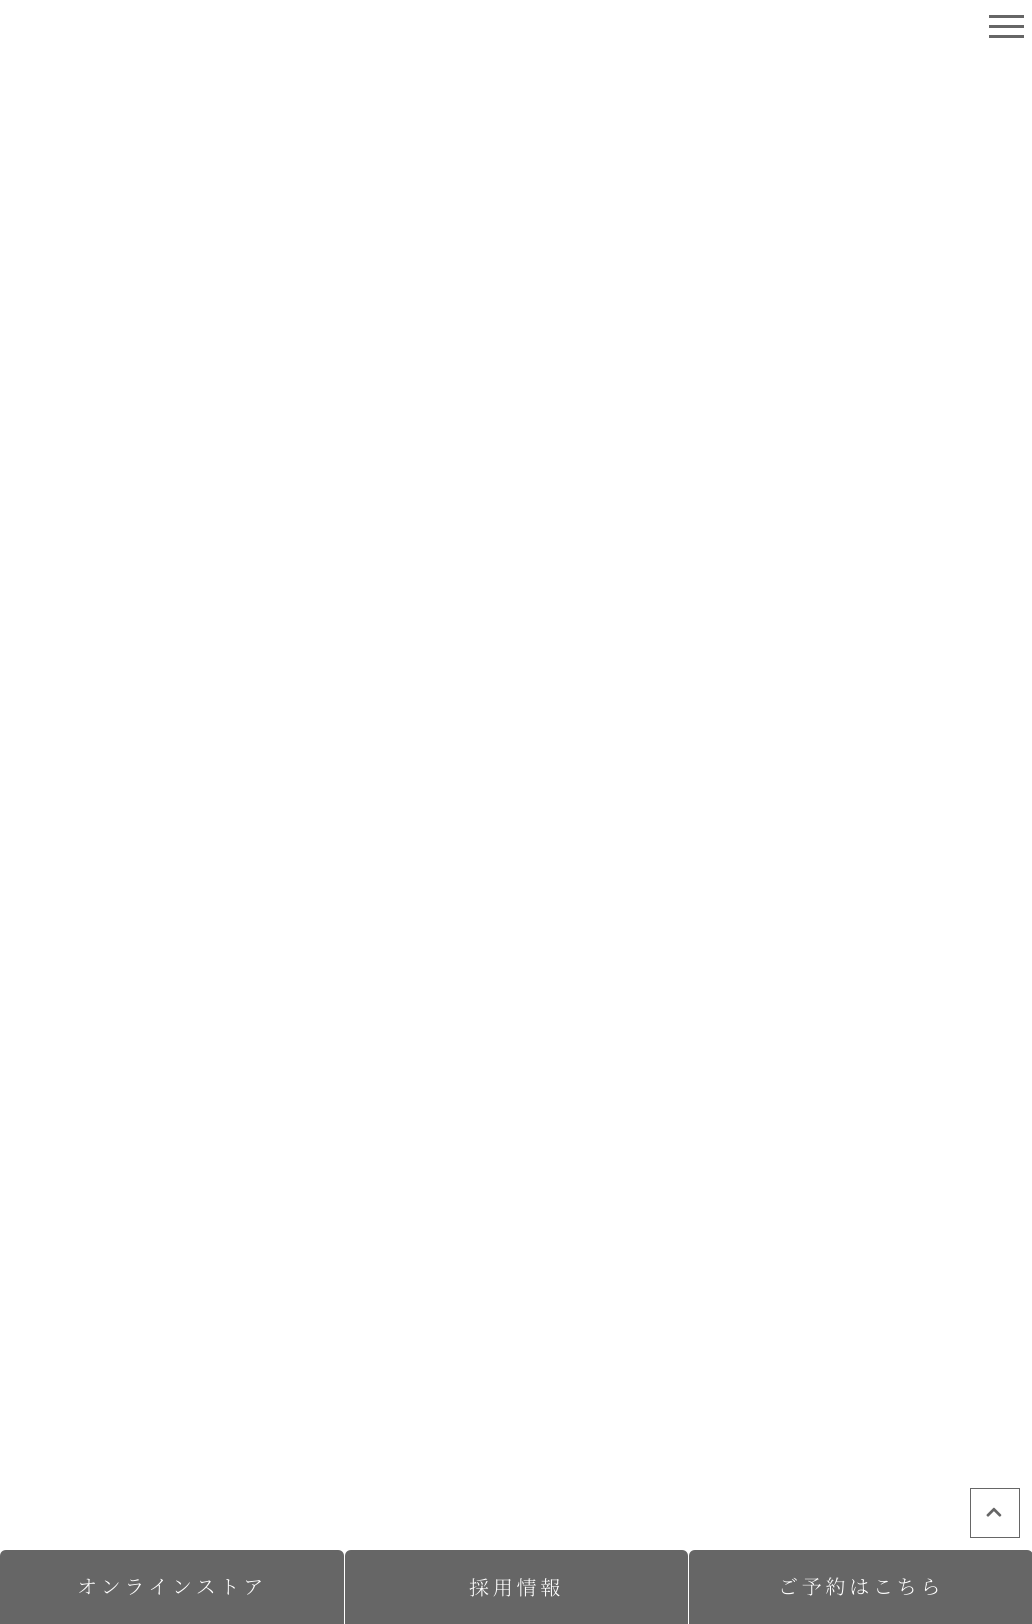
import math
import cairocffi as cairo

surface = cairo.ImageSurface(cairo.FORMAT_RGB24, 1032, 1624)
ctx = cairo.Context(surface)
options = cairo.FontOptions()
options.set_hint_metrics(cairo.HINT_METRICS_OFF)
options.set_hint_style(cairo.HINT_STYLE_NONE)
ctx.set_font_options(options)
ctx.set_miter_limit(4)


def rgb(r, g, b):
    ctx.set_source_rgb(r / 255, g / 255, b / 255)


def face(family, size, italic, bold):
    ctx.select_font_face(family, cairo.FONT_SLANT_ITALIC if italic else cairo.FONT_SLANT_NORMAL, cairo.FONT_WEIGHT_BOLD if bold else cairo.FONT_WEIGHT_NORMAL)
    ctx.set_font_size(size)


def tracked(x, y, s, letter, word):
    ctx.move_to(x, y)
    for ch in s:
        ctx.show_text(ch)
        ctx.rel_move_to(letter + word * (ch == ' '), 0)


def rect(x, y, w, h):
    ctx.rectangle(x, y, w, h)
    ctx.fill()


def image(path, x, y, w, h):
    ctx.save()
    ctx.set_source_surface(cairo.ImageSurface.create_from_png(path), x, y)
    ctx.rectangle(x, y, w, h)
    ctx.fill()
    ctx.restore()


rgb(255, 255, 255)
ctx.paint()
rgb(102, 102, 102)
rect(989, 15, 35, 3)
rect(989, 25, 35, 3)
rect(989, 35, 35, 3)
ctx.rectangle(970.5, 1488.5, 49, 49)
ctx.set_line_width(1)
ctx.stroke()
image('image0.png', 986, 1507, 16, 10)
ctx.new_path()
ctx.move_to(6, 1550)
ctx.line_to(338, 1550)
ctx.curve_to(341.5, 1550, 344, 1552.5, 344, 1556)
ctx.line_to(344, 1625)
ctx.line_to(0, 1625)
ctx.line_to(0, 1556)
ctx.curve_to(0, 1552.5, 2.5, 1550, 6, 1550)
ctx.close_path()
ctx.fill()
face('Noto Serif JP Light', 20, 0, 0)
rgb(255, 255, 255)
tracked(77, 1594, 'オンラインストア', 3.75, 0)
rgb(102, 102, 102)
ctx.new_path()
ctx.move_to(351, 1550)
ctx.line_to(682, 1550)
ctx.curve_to(685.5, 1550, 688, 1552.5, 688, 1556)
ctx.line_to(688, 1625)
ctx.line_to(345, 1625)
ctx.line_to(345, 1556)
ctx.curve_to(345, 1552.5, 347.5, 1550, 351, 1550)
ctx.close_path()
ctx.fill()
rgb(255, 255, 255)
tracked(469, 1595, '採用情報', 3.75, 0)
rgb(102, 102, 102)
ctx.new_path()
ctx.move_to(695, 1550)
ctx.line_to(1027, 1550)
ctx.curve_to(1030.5, 1550, 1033, 1552.5, 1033, 1556)
ctx.line_to(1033, 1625)
ctx.line_to(689, 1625)
ctx.line_to(689, 1556)
ctx.curve_to(689, 1552.5, 691.5, 1550, 695, 1550)
ctx.close_path()
ctx.fill()
rgb(255, 255, 255)
tracked(778, 1594, 'ご予約はこちら', 3.75, 0)
surface.write_to_png('render.png')
